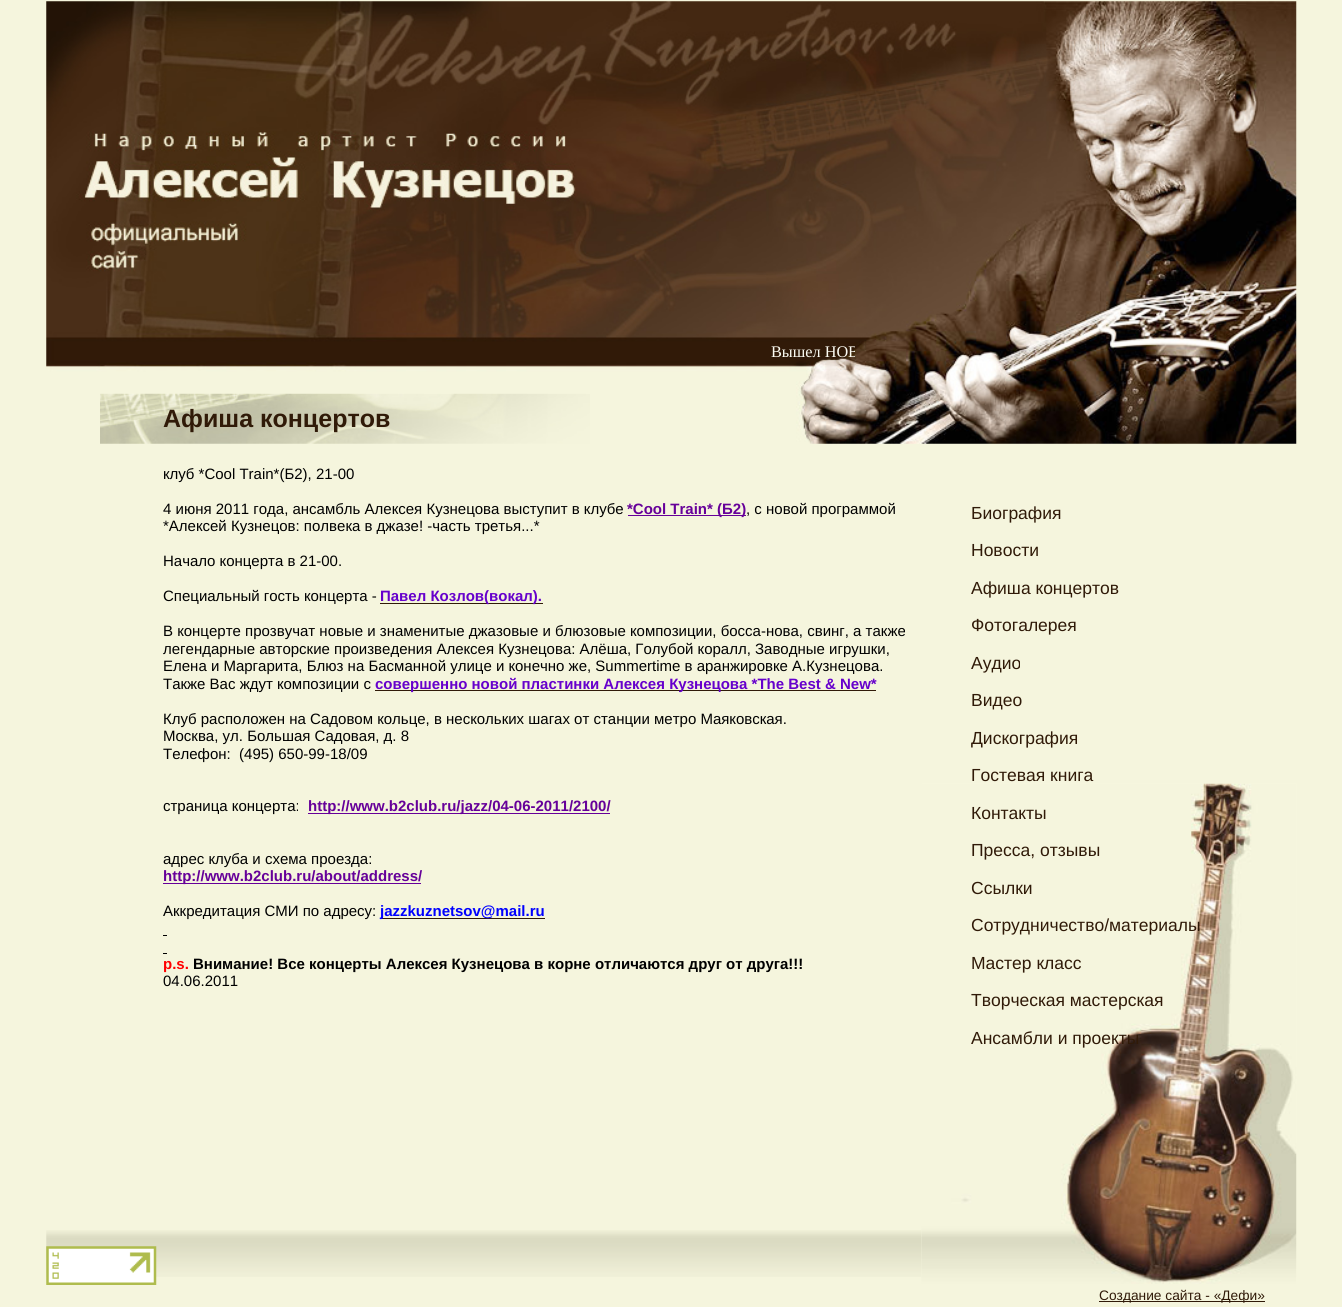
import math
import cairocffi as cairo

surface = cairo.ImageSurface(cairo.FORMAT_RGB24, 1342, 1307)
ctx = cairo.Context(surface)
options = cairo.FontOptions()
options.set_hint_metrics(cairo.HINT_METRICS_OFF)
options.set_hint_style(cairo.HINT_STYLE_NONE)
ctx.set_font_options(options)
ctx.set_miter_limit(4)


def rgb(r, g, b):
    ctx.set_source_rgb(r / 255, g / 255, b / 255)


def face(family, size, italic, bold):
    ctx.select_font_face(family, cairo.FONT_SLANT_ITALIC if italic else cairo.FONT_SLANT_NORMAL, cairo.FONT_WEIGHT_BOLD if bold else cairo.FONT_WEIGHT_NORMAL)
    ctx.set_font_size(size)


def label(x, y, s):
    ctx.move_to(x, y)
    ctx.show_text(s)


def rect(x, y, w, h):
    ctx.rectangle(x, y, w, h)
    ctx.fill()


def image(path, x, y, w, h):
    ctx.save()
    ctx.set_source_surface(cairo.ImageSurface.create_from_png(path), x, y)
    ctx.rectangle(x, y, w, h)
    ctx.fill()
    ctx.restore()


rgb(245, 245, 221)
ctx.paint()
image('image0.png', 46, 1, 1251, 443)
ctx.save()
ctx.rectangle(46, 343, 809, 20)
ctx.clip()
face('Liberation Serif', 16.25, 0, 0)
rgb(252, 252, 243)
label(771, 357, 'Вышел НОВ')
ctx.restore()
image('image1.png', 100, 393, 490, 51)
face('Liberation Sans', 25, 0, 1)
rgb(48, 26, 8)
label(163, 427, 'Афиша концертов')
face('Liberation Sans', 15, 0, 0)
rgb(0, 0, 0)
label(163, 479, 'клуб *Cool Train*(Б2), 21-00')
label(163, 514, '4 июня 2011 года, ансамбль Алексея Кузнецова выступит в клубе')
rgb(102, 0, 153)
rect(628, 515, 118, 1)
face('Liberation Sans', 15, 0, 1)
label(627, 514, '*Cool Train* (Б2)')
face('Liberation Sans', 15, 0, 0)
rgb(0, 0, 0)
label(746, 514, ', с новой программой')
label(163, 531, '*Алексей Кузнецов: полвека в джазе! -часть третья...*')
label(163, 566, 'Начало концерта в 21-00.')
label(163, 601, 'Специальный гость концерта -')
rgb(48, 26, 8)
rect(380, 603, 163, 1)
face('Liberation Sans', 15, 0, 1)
rgb(102, 0, 204)
label(380, 601, 'Павел Козлов(вокал).')
face('Liberation Sans', 15, 0, 0)
rgb(0, 0, 0)
label(163, 636, 'В концерте прозвучат новые и знаменитые джазовые и блюзовые композиции, босса-нова, свинг, а также')
label(163, 654, 'легендарные авторские произведения Алексея Кузнецова: Алёша, Голубой коралл, Заводные игрушки,')
label(163, 671, 'Елена и Маргарита, Блюз на Басманной улице и конечно же, Summertime в аранжировке А.Кузнецова.')
label(163, 689, 'Также Вас ждут композиции с')
rgb(48, 26, 8)
rect(375, 690, 501, 1)
face('Liberation Sans', 15, 0, 1)
rgb(102, 0, 204)
label(375, 689, 'совершенно новой пластинки Алексея Кузнецова *The Best & New*')
face('Liberation Sans', 15, 0, 0)
rgb(0, 0, 0)
label(163, 724, 'Клуб расположен на Садовом кольце, в нескольких шагах от станции метро Маяковская.')
label(163, 741, 'Москва, ул. Большая Садовая, д. 8')
label(163, 759, 'Телефон:  (495) 650-99-18/09')
label(163, 811, 'страница концерта:')
rgb(102, 0, 153)
rect(308, 813, 302, 1)
face('Liberation Sans', 15, 0, 1)
label(308, 811, 'http://www.b2club.ru/jazz/04-06-2011/2100/')
face('Liberation Sans', 15, 0, 0)
rgb(0, 0, 0)
label(163, 864, 'адрес клуба и схема проезда:')
rgb(102, 0, 153)
rect(163, 883, 258, 1)
face('Liberation Sans', 15, 0, 1)
label(163, 881, 'http://www.b2club.ru/about/address/')
face('Liberation Sans', 15, 0, 0)
rgb(0, 0, 0)
label(163, 916, 'Аккредитация СМИ по адресу:')
rgb(48, 26, 8)
rect(380, 918, 165, 1)
face('Liberation Sans', 15, 0, 1)
rgb(0, 0, 255)
label(380, 916, 'jazzkuznetsov@mail.ru')
rgb(0, 0, 0)
rect(163, 935, 4, 1)
rect(163, 953, 4, 1)
rgb(255, 0, 0)
label(163, 969, 'p.s.')
rgb(0, 0, 0)
label(193, 969, 'Внимание! Все концерты Алексея Кузнецова в корне отличаются друг от друга!!!')
face('Liberation Sans', 15, 0, 0)
label(163, 986, '04.06.2011')
image('image2.png', 921, 783, 376, 501)
face('Liberation Sans', 17.5, 0, 0)
rgb(48, 26, 8)
label(971, 519, 'Биография')
label(971, 556, 'Новости')
label(971, 594, 'Афиша концертов')
label(971, 631, 'Фотогалерея')
label(971, 669, 'Аудио')
label(971, 706, 'Видео')
label(971, 744, 'Дискография')
label(971, 781, 'Гостевая книга')
label(971, 819, 'Контакты')
label(971, 856, 'Пресса, отзывы')
label(971, 894, 'Ссылки')
label(971, 931, 'Cотрудничество/материалы')
label(971, 969, 'Мастер класс')
label(971, 1006, 'Творческая мастерская')
label(971, 1044, 'Ансамбли и проекты')
rect(1099, 1301, 166, 1)
face('Liberation Sans', 13.75, 0, 0)
label(1099, 1300, 'Создание сайта - «Дефи»')
image('image3.png', 46, 1230, 875, 47)
image('image4.png', 46, 1246, 111, 39)
surface.write_to_png('render.png')
